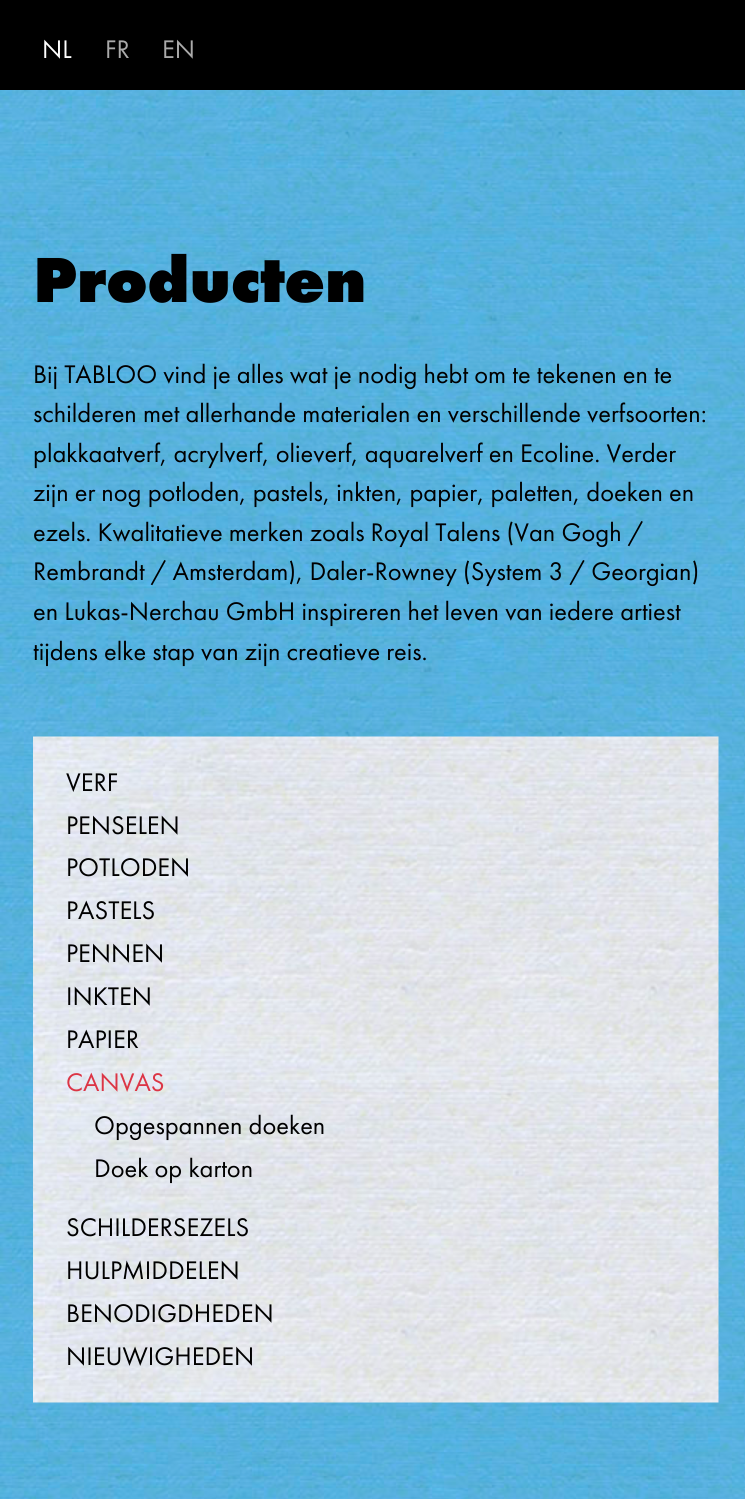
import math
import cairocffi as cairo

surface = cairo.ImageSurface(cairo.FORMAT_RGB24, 745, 1499)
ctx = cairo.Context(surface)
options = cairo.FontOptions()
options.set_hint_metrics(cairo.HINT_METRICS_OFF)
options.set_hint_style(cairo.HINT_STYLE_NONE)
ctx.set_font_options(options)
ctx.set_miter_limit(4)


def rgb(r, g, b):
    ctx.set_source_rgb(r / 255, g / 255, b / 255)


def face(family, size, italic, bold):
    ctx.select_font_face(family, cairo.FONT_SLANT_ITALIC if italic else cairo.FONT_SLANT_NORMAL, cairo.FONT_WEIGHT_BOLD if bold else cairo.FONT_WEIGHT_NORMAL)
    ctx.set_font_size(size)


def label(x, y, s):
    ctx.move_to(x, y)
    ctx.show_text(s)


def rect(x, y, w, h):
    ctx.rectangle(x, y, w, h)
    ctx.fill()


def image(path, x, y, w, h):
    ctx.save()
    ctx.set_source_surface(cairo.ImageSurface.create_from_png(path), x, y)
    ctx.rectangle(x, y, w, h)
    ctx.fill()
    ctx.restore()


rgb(255, 255, 255)
ctx.paint()
image('image0.png', 0, 90, 745, 1409)
rgb(0, 0, 0)
rect(0, 0, 745, 90)
face('Futura PT', 26.4, 0, 0)
rgb(255, 255, 255)
label(42, 58, 'NL')
rgb(170, 170, 170)
label(105, 58, 'FR')
label(162, 58, 'EN')
face('Futura PT ExtraBold', 66, 0, 0)
rgb(0, 0, 0)
label(33, 302, 'Producten')
face('Futura PT', 26.4, 0, 0)
label(33, 383, 'Bij TABLOO vind je alles wat je nodig hebt om te tekenen en te')
label(33, 422, 'schilderen met allerhande materialen en verschillende verfsoorten:')
label(33, 462, 'plakkaatverf, acrylverf, olieverf, aquarelverf en Ecoline. Verder')
label(33, 501, 'zijn er nog potloden, pastels, inkten, papier, paletten, doeken en')
label(33, 541, 'ezels. Kwalitatieve merken zoals Royal Talens (Van Gogh /')
label(33, 580, 'Rembrandt / Amsterdam), Daler-Rowney (System 3 / Georgian)')
label(33, 620, 'en Lukas-Nerchau GmbH inspireren het leven van iedere artiest')
label(33, 660, 'tijdens elke stap van zijn creatieve reis.')
image('image1.png', 33, 736, 686, 667)
label(66, 791, 'VERF')
label(66, 834, 'PENSELEN')
label(66, 876, 'POTLODEN')
label(66, 919, 'PASTELS')
label(66, 962, 'PENNEN')
label(66, 1005, 'INKTEN')
label(66, 1048, 'PAPIER')
rgb(220, 53, 69)
label(66, 1091, 'CANVAS')
rgb(0, 0, 0)
label(94, 1134, 'Opgespannen doeken')
label(94, 1177, 'Doek op karton')
label(66, 1236, 'SCHILDERSEZELS')
label(66, 1279, 'HULPMIDDELEN')
label(66, 1322, 'BENODIGDHEDEN')
label(66, 1365, 'NIEUWIGHEDEN')
surface.write_to_png('render.png')
